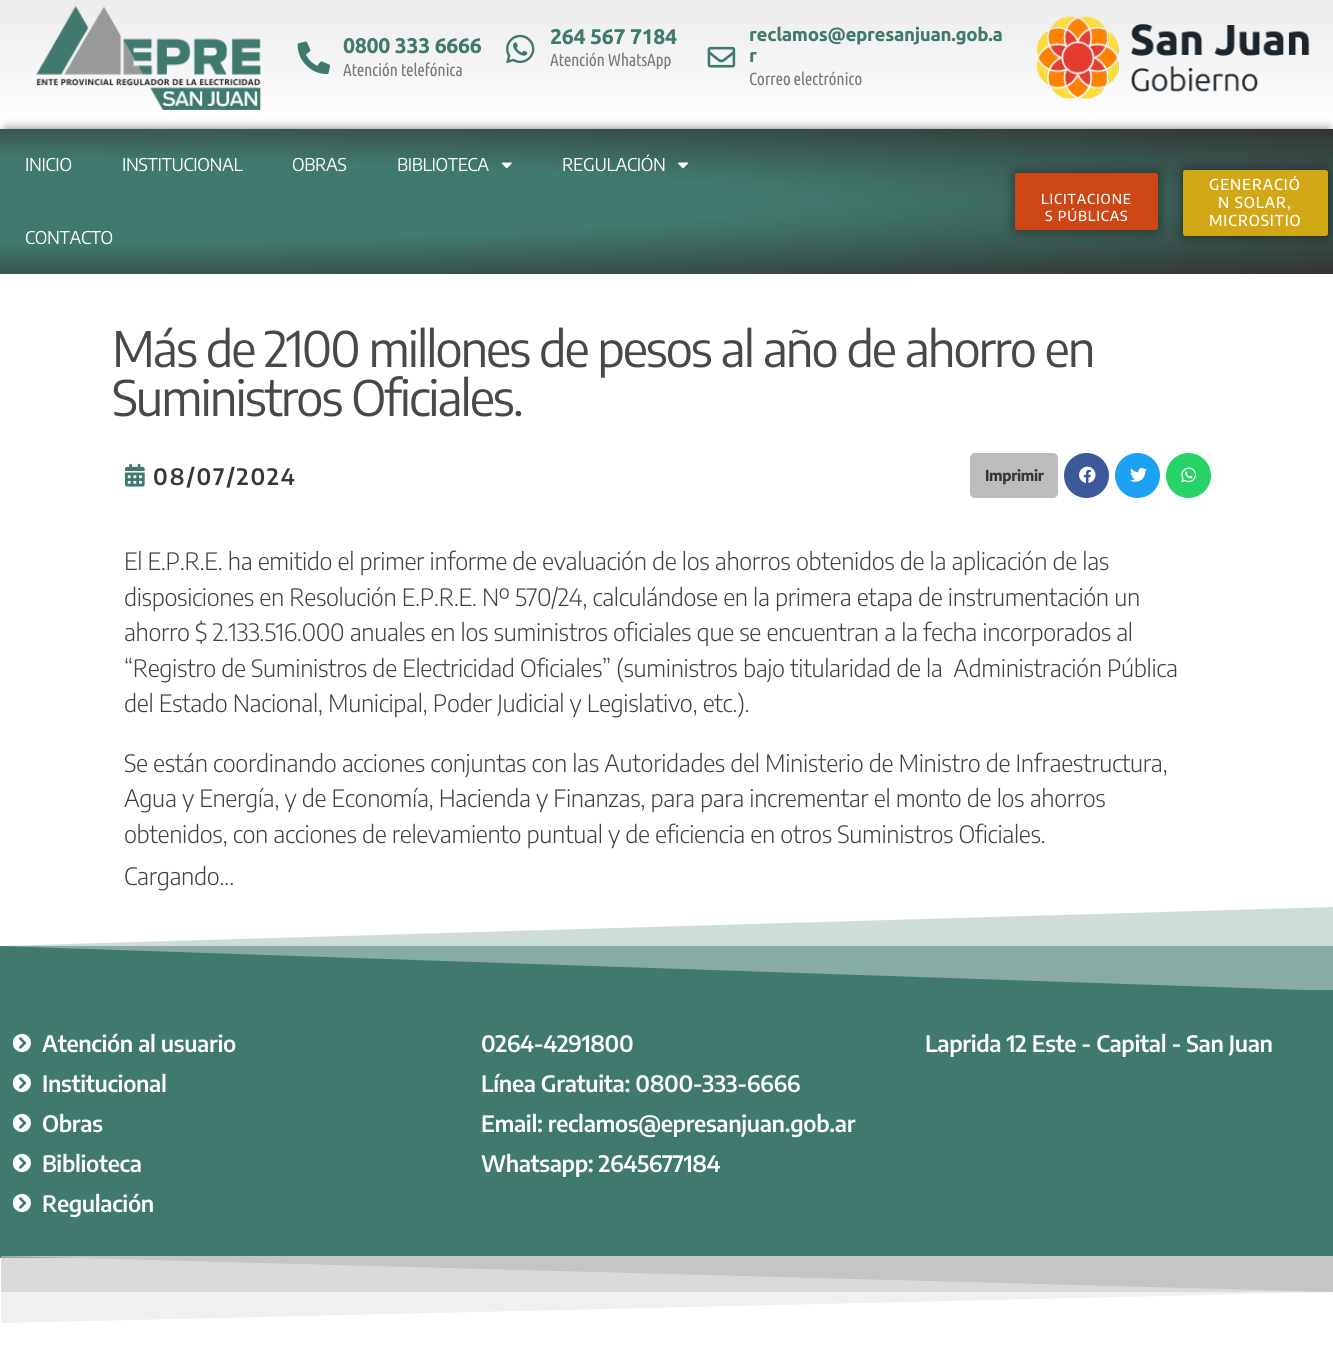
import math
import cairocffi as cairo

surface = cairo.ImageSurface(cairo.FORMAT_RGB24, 1333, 1359)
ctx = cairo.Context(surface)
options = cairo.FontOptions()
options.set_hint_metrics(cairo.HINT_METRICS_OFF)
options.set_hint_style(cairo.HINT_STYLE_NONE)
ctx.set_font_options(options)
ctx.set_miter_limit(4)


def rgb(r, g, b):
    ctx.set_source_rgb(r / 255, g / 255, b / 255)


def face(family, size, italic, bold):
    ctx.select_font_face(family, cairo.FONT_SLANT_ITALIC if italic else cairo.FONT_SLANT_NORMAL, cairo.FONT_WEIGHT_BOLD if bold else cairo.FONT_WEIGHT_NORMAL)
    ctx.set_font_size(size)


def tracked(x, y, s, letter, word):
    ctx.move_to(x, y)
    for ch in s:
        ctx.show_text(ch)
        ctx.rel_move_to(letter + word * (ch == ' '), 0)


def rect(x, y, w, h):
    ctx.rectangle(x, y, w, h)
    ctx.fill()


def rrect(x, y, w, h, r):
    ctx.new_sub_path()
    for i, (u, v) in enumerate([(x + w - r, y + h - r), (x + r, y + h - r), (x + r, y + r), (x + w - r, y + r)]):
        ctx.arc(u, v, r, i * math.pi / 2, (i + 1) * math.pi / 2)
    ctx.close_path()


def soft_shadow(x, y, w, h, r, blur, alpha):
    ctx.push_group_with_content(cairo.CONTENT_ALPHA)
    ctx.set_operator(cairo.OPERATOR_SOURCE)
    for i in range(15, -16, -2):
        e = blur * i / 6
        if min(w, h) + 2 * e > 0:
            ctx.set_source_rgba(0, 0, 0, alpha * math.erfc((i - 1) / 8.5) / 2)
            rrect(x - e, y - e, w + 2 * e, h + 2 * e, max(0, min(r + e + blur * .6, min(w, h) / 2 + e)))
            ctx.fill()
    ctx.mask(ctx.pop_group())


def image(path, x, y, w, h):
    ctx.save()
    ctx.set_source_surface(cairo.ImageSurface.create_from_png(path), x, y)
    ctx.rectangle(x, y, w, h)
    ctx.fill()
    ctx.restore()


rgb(255, 255, 255)
ctx.paint()
rgb(226, 226, 226)
rect(1, 1258, 1332, 34)
rgb(160, 189, 183)
rect(0, 946, 1333, 44)
gradient = cairo.LinearGradient(667, 0, 667, 129)
gradient.add_color_stop_rgba(0, 0.925, 0.925, 0.925, 1)
gradient.add_color_stop_rgba(1, 1, 1, 1, 1)
ctx.set_source(gradient)
rect(0, 0, 1333, 112)
image('image0.png', 36, 6, 226, 104)
image('image1.png', 297, 41, 34, 34)
face('Ubuntu', 21.25, 0, 1)
rgb(64, 122, 110)
tracked(343, 53, '0800 333 6666', -0.34, 0)
face('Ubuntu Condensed', 17.5, 0, 0)
rgb(122, 122, 122)
tracked(343, 76, 'Atención telefónica', -0.34, 0)
image('image2.png', 506, 34, 29, 30)
face('Ubuntu', 21.25, 0, 1)
rgb(64, 122, 110)
tracked(550, 44, '264 567 7184', -0.34, 0)
face('Ubuntu Condensed', 17.5, 0, 0)
rgb(122, 122, 122)
tracked(550, 66, 'Atención WhatsApp', -0.34, 0)
image('image3.png', 707, 46, 29, 22)
face('Ubuntu', 18.75, 0, 1)
rgb(64, 122, 110)
tracked(749, 41, 'reclamos@epresanjuan.gob.a', -0.34, 0)
tracked(749, 62, 'r', -0.34, 0)
face('Ubuntu Condensed', 17.5, 0, 0)
rgb(122, 122, 122)
tracked(749, 85, 'Correo electrónico', -0.34, 0)
image('image4.png', 1036, 16, 274, 83)
rgb(0, 0, 0)
soft_shadow(6, 129, 1322, 132, 0, 5.5, 0.5)
gradient = cairo.RadialGradient(0, 0, 0, 0, 0, 1)
gradient.set_matrix(cairo.Matrix(1 / 1886, 0, 0, 1 / 103, -1 * 0 / 1886, -1 * 201 / 103))
gradient.add_color_stop_rgba(0.4, 0.251, 0.478, 0.431, 1)
gradient.add_color_stop_rgba(1, 0.2, 0.2, 0.2, 1)
ctx.set_source(gradient)
rect(0, 129, 1333, 145)
face('Encode Sans Condensed', 17.5, 0, 0)
rgb(255, 255, 255)
tracked(25, 171, 'INICIO', -0.34, 0)
tracked(122, 171, 'INSTITUCIONAL', -0.34, 0)
tracked(292, 171, 'OBRAS', -0.34, 0)
tracked(397, 171, 'BIBLIOTECA', -0.34, 0)
image('image5.png', 501, 162, 11, 7)
tracked(562, 171, 'REGULACIÓN', -0.34, 0)
image('image6.png', 677, 162, 11, 7)
tracked(25, 244, 'CONTACTO', -0.34, 0)
rgb(0, 0, 0)
soft_shadow(1015, 173, 143, 57, 2.5, 6, 0.5)
rgb(206, 70, 22)
rrect(1015, 173, 143, 57, 2.5)
ctx.fill()
face('Encode Sans Condensed Medium', 13.75, 0, 0)
rgb(255, 255, 255)
tracked(1041, 204, 'LICITACIONE', 0.9, 0)
tracked(1045, 221, 'S PÚBLICAS', 0.9, 0)
rgb(0, 0, 0)
soft_shadow(1183, 170, 145, 66, 2.5, 6, 0.5)
rgb(210, 167, 22)
rrect(1183, 170, 145, 66, 2.5)
ctx.fill()
face('Encode Sans Condensed Medium', 15, 0, 0)
rgb(255, 255, 255)
tracked(1209, 190, 'GENERACIÓ', 0.9, 0)
tracked(1218, 208, 'N SOLAR,', 0.9, 0)
tracked(1209, 226, 'MICROSITIO', 0.9, 0)
face('Encode Sans Condensed', 48.75, 0, 0)
rgb(72, 72, 72)
tracked(112, 367, 'Más de 2100 millones de pesos al año de ahorro en', -2.05, 0)
tracked(112, 416, 'Suministros Oficiales.', -2.05, 0)
image('image7.png', 125, 464, 20, 23)
face('Encode Sans Condensed SemiBold', 22.5, 0, 0)
rgb(54, 54, 54)
tracked(153, 485, '08/07/2024', 2, 0)
rgb(188, 188, 188)
rrect(970, 453, 88, 45, 5)
ctx.fill()
face('Encode Sans Condensed', 15, 0, 1)
rgb(54, 54, 54)
tracked(985, 481, 'Imprimir', -0.34, 0)
rgb(59, 89, 152)
ctx.new_path()
ctx.arc(1086.5, 475.5, 22.5, 0, 2 * math.pi)
ctx.fill()
image('image8.png', 1079, 466, 17, 17)
rgb(29, 161, 242)
ctx.arc(1137.5, 475.5, 22.5, 0, 2 * math.pi)
ctx.fill()
image('image9.png', 1130, 468, 17, 14)
rgb(37, 211, 102)
ctx.arc(1188.5, 475.5, 22.5, 0, 2 * math.pi)
ctx.fill()
image('image10.png', 1181, 467, 16, 16)
face('Encode Sans Condensed Light', 23.75, 0, 0)
rgb(66, 66, 66)
tracked(124, 570, 'El E.P.R.E. ha emitido el primer informe de evaluación de los ahorros obtenidos de la aplicación de las', -0.34, 0)
tracked(124, 606, 'disposiciones en Resolución E.P.R.E. Nº 570/24, calculándose en la primera etapa de instrumentación un', -0.34, 0)
tracked(124, 641, 'ahorro $ 2.133.516.000 anuales en los suministros oficiales que se encuentran a la fecha incorporados al', -0.34, 0)
tracked(124, 677, '“Registro de Suministros de Electricidad Oficiales” (suministros bajo titularidad de la  Administración Pública', -0.34, 0)
tracked(124, 712, 'del Estado Nacional, Municipal, Poder Judicial y Legislativo, etc.).', -0.34, 0)
tracked(124, 772, 'Se están coordinando acciones conjuntas con las Autoridades del Ministerio de Ministro de Infraestructura,', -0.34, 0)
tracked(124, 807, 'Agua y Energía, y de Economía, Hacienda y Finanzas, para para incrementar el monto de los ahorros', -0.34, 0)
tracked(124, 843, 'obtenidos, con acciones de relevamiento puntual y de eficiencia en otros Suministros Oficiales.', -0.34, 0)
tracked(124, 885, 'Cargando…', -0.34, 0)
rgb(64, 122, 110)
ctx.new_path()
ctx.move_to(1333, 991)
ctx.line_to(-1, 991)
ctx.line_to(-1, 946)
ctx.close_path()
ctx.fill()
ctx.set_source_rgba(0.251, 0.478, 0.431, 0.25)
ctx.new_path()
ctx.move_to(-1, 991)
ctx.line_to(1333, 991)
ctx.line_to(1333, 907)
ctx.line_to(-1, 946)
ctx.close_path()
ctx.fill()
rgb(64, 122, 110)
rect(0, 990, 1333, 268)
rgb(131, 160, 154)
rect(1, 1256, 74, 2)
image('image11.png', 12, 1033, 19, 19)
face('Encode Sans Condensed SemiBold', 22.5, 0, 0)
rgb(255, 255, 255)
tracked(42, 1052, 'Atención al usuario', -0.34, 0)
image('image11.png', 12, 1073, 19, 19)
tracked(42, 1092, 'Institucional', -0.34, 0)
image('image11.png', 12, 1113, 19, 19)
tracked(42, 1132, 'Obras', -0.34, 0)
image('image11.png', 12, 1153, 19, 19)
tracked(42, 1172, 'Biblioteca', -0.34, 0)
image('image11.png', 12, 1193, 19, 19)
tracked(42, 1212, 'Regulación', -0.34, 0)
tracked(481, 1052, '0264-4291800', -0.34, 0)
tracked(481, 1092, 'Línea Gratuita: 0800-333-6666', -0.34, 0)
tracked(481, 1132, 'Email: reclamos@epresanjuan.gob.ar', -0.34, 0)
tracked(481, 1172, 'Whatsapp: 2645677184', -0.34, 0)
tracked(925, 1052, 'Laprida 12 Este - Capital - San Juan', -0.34, 0)
rgb(197, 197, 197)
ctx.new_path()
ctx.move_to(1, 1256)
ctx.line_to(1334, 1256)
ctx.line_to(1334, 1292)
ctx.close_path()
ctx.fill()
ctx.set_source_rgba(0.773, 0.773, 0.773, 0.25)
ctx.new_path()
ctx.move_to(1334, 1256)
ctx.line_to(1, 1256)
ctx.line_to(1, 1323)
ctx.line_to(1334, 1292)
ctx.close_path()
ctx.fill()
surface.write_to_png('render.png')
